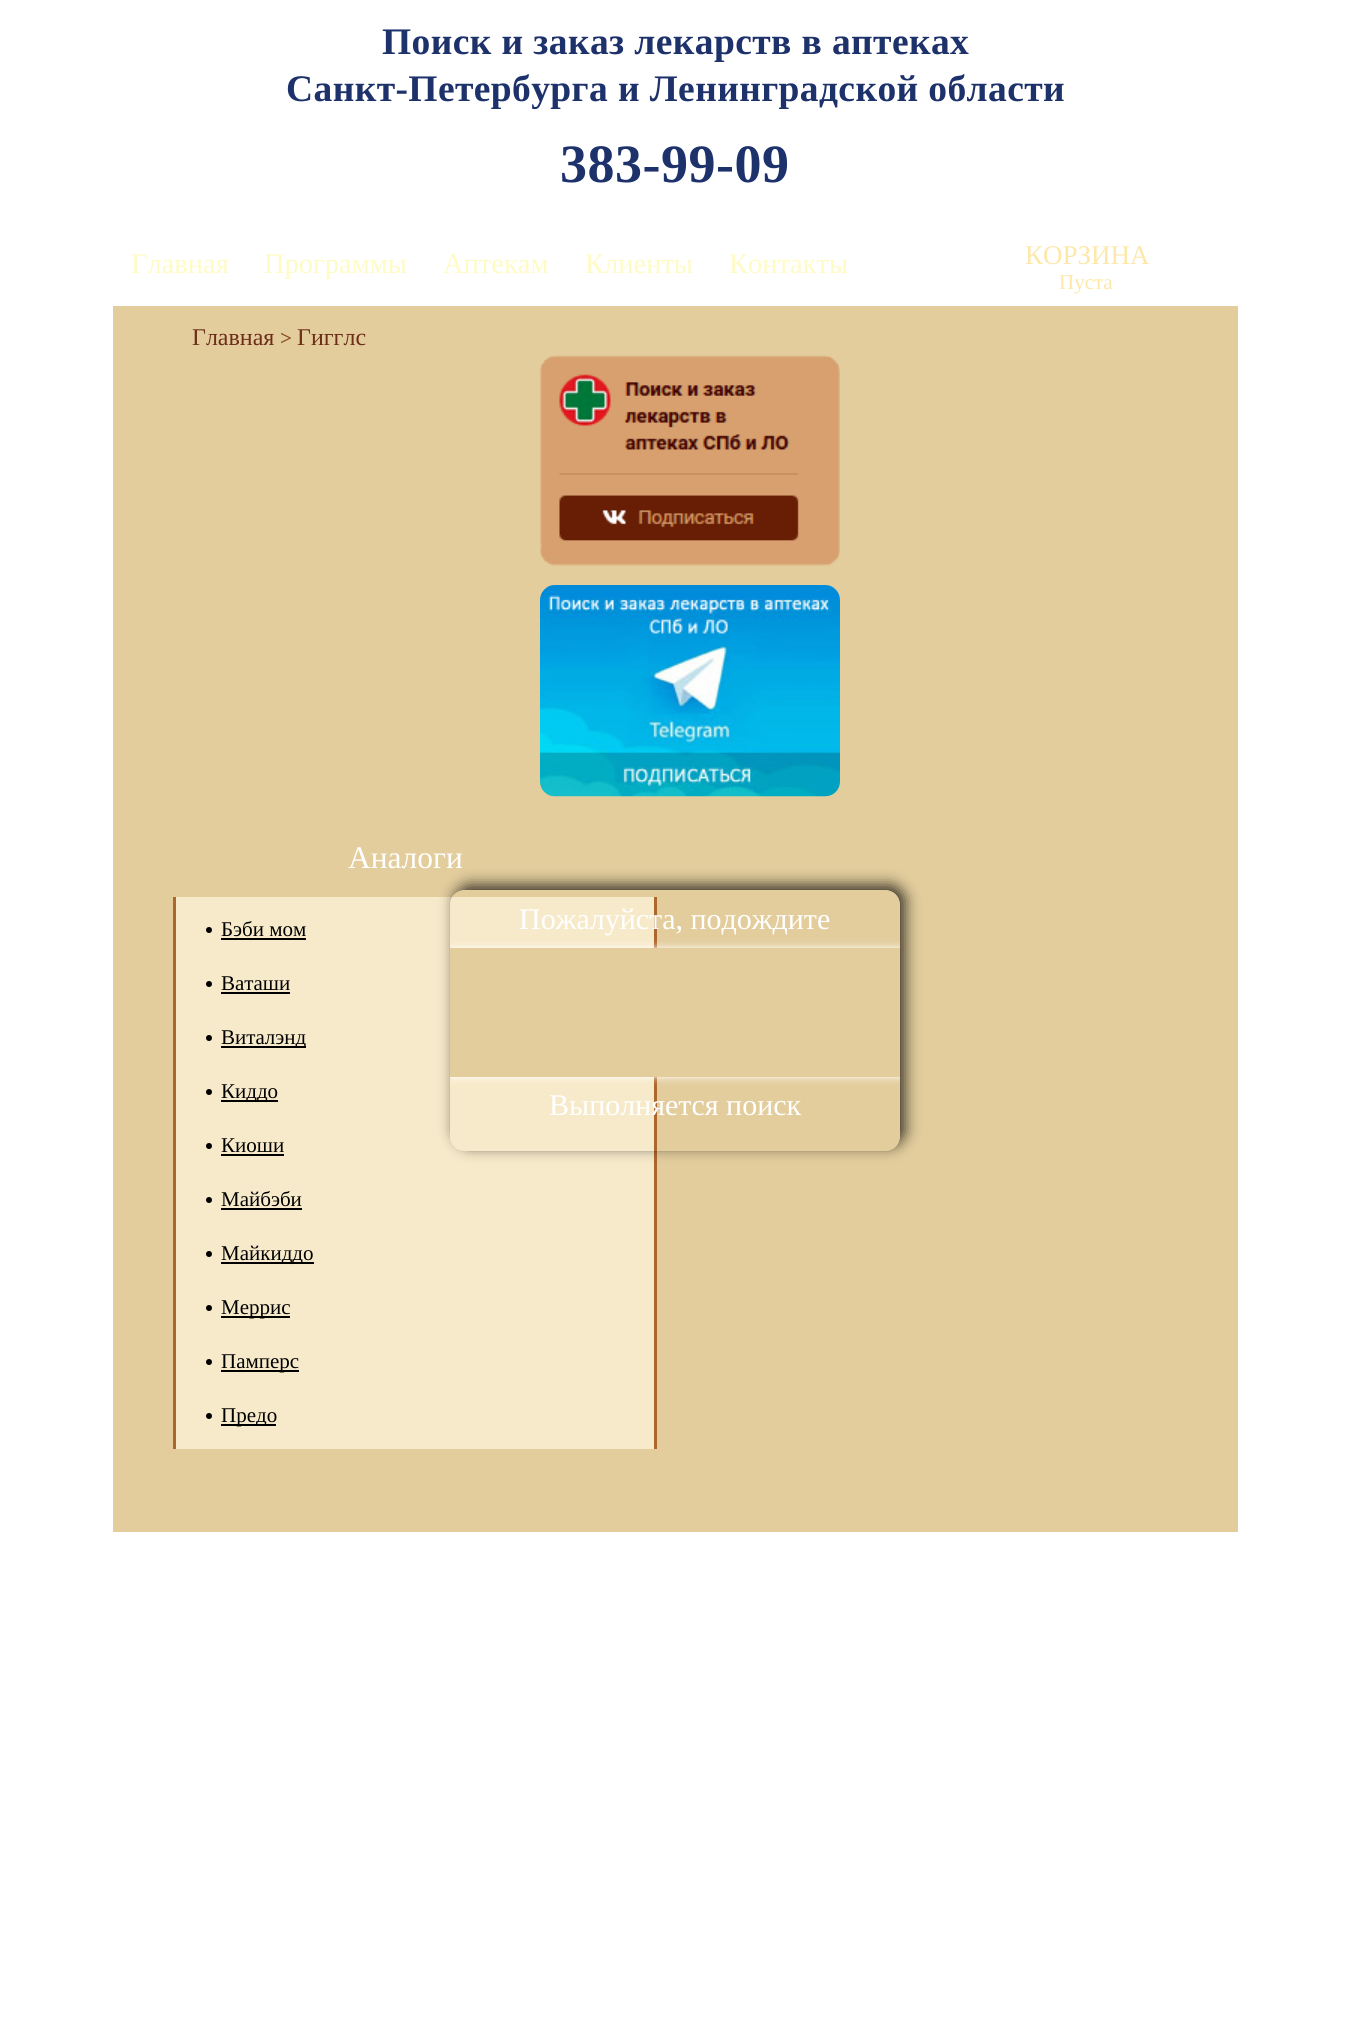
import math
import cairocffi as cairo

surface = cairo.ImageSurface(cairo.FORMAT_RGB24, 1349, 2039)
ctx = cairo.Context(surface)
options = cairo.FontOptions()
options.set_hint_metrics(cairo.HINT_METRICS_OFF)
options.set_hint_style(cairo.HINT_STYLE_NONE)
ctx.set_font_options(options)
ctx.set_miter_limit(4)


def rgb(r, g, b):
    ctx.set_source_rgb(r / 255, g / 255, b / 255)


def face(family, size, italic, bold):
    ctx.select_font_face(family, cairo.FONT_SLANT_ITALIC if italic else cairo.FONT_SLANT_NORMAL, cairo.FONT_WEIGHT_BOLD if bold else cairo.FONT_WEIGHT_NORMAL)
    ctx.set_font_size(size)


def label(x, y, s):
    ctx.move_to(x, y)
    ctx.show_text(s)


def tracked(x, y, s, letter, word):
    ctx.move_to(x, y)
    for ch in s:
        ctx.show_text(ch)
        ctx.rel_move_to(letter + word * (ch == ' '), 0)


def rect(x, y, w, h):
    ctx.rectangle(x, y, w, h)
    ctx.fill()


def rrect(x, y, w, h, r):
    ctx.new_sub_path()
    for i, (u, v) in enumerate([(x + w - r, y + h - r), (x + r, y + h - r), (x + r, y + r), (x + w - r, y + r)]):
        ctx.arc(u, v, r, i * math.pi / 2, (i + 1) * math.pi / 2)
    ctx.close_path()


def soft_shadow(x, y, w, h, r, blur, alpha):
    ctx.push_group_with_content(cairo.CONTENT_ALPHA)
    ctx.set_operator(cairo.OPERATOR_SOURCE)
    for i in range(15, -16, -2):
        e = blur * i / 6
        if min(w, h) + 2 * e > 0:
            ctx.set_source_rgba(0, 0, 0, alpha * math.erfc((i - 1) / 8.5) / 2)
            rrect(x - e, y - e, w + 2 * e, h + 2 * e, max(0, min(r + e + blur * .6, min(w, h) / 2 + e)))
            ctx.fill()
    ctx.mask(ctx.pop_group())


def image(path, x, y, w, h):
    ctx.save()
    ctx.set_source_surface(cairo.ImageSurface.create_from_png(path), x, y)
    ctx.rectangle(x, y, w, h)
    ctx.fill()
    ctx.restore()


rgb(255, 255, 255)
ctx.paint()
face('Liberation Serif', 37.5, 0, 1)
rgb(29, 49, 107)
tracked(382, 54, 'Поиск и заказ лекарств в аптеках', 0.4, 0)
tracked(286, 101, 'Санкт-Петербурга и Ленинградской области', 0.4, 0)
face('Liberation Serif', 54, 0, 1)
tracked(560, 182, '383-99-09', 0.5, 0)
face('Liberation Serif', 28.5, 0, 0)
rgb(255, 251, 196)
label(131, 273, 'Главная')
label(264, 273, 'Программы')
label(443, 273, 'Аптекам')
label(585, 273, 'Клиенты')
label(729, 273, 'Контакты')
face('Liberation Serif', 27, 0, 0)
rgb(253, 231, 169)
label(1025, 264, 'КОРЗИНА')
face('Liberation Serif', 21, 0, 0)
label(1059, 289, 'Пуста')
rgb(227, 205, 157)
rect(113, 306, 1125, 1226)
face('Liberation Serif', 24, 0, 0)
rgb(109, 46, 24)
label(192, 345, 'Главная')
face('Liberation Serif', 21, 0, 1)
rgb(140, 82, 34)
label(280, 345, '>')
face('Liberation Serif', 24, 0, 0)
rgb(109, 46, 24)
label(297, 345, 'Гигглс')
image('image0.png', 540, 355, 300, 211)
image('image1.png', 540, 585, 300, 212)
face('Liberation Serif', 31.5, 0, 0)
rgb(255, 255, 255)
label(348, 868, 'Аналоги')
rgb(247, 234, 202)
rect(176, 897, 478, 552)
rgb(172, 103, 45)
rect(654, 897, 3, 552)
rect(173, 897, 3, 552)
rgb(0, 0, 0)
ctx.new_path()
ctx.arc(209, 930, 3, 0, 2 * math.pi)
ctx.fill()
face('Liberation Serif', 21, 0, 0)
label(221, 936, 'Бэби мом')
rect(221, 938, 85, 2)
ctx.new_path()
ctx.arc(209, 984, 3, 0, 2 * math.pi)
ctx.fill()
label(221, 990, 'Ваташи')
rect(221, 992, 69, 2)
ctx.new_path()
ctx.arc(209, 1038, 3, 0, 2 * math.pi)
ctx.fill()
rect(221, 1046, 85, 2)
label(221, 1044, 'Виталэнд')
ctx.new_path()
ctx.arc(209, 1092, 3, 0, 2 * math.pi)
ctx.fill()
rect(221, 1100, 57, 2)
label(221, 1098, 'Киддо')
ctx.new_path()
ctx.arc(209, 1146, 3, 0, 2 * math.pi)
ctx.fill()
label(221, 1152, 'Киоши')
rect(221, 1154, 63, 2)
ctx.new_path()
ctx.arc(209, 1200, 3, 0, 2 * math.pi)
ctx.fill()
label(221, 1206, 'Майбэби')
rect(221, 1208, 81, 2)
ctx.new_path()
ctx.arc(209, 1254, 3, 0, 2 * math.pi)
ctx.fill()
rect(221, 1262, 93, 2)
label(221, 1260, 'Майкиддо')
ctx.new_path()
ctx.arc(209, 1308, 3, 0, 2 * math.pi)
ctx.fill()
rect(221, 1316, 69, 2)
label(221, 1314, 'Меррис')
ctx.new_path()
ctx.arc(209, 1362, 3, 0, 2 * math.pi)
ctx.fill()
rect(221, 1370, 78, 2)
label(221, 1368, 'Памперс')
ctx.new_path()
ctx.arc(209, 1416, 3, 0, 2 * math.pi)
ctx.fill()
rect(221, 1424, 55, 2)
label(221, 1422, 'Предо')
ctx.save()
ctx.set_fill_rule(cairo.FILL_RULE_EVEN_ODD)
ctx.new_path()
ctx.move_to(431, 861)
ctx.line_to(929, 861)
ctx.line_to(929, 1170)
ctx.line_to(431, 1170)
ctx.close_path()
ctx.move_to(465, 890)
ctx.line_to(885, 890)
ctx.curve_to(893.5, 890, 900, 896.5, 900, 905)
ctx.line_to(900, 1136)
ctx.curve_to(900, 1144.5, 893.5, 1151, 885, 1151)
ctx.line_to(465, 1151)
ctx.curve_to(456.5, 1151, 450, 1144.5, 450, 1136)
ctx.line_to(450, 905)
ctx.curve_to(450, 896.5, 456.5, 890, 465, 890)
ctx.close_path()
ctx.clip()
rgb(0, 0, 0)
soft_shadow(455, 885, 450, 261, 15, 7.5, 0.75)
ctx.restore()
ctx.save()
rrect(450, 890, 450, 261, 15)
ctx.clip()
rgb(255, 255, 255)
soft_shadow(450, 948, 450, 129, 0, 4, 1)
ctx.restore()
face('Liberation Serif', 30, 0, 0)
rgb(255, 255, 255)
label(519, 929, 'Пожалуйста, подождите')
rgb(227, 205, 157)
rect(450, 948, 450, 129)
rgb(255, 255, 255)
label(549, 1115, 'Выполняется поиск')
surface.write_to_png('render.png')
